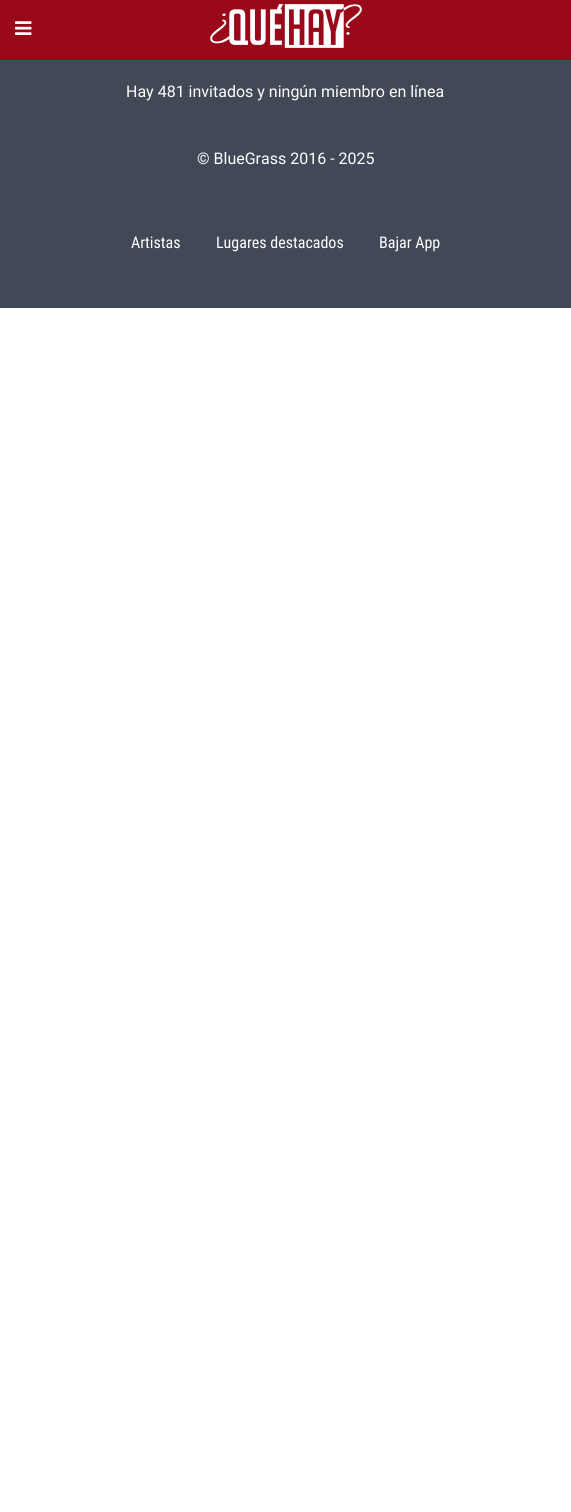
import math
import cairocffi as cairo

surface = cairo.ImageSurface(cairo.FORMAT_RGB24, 571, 1512)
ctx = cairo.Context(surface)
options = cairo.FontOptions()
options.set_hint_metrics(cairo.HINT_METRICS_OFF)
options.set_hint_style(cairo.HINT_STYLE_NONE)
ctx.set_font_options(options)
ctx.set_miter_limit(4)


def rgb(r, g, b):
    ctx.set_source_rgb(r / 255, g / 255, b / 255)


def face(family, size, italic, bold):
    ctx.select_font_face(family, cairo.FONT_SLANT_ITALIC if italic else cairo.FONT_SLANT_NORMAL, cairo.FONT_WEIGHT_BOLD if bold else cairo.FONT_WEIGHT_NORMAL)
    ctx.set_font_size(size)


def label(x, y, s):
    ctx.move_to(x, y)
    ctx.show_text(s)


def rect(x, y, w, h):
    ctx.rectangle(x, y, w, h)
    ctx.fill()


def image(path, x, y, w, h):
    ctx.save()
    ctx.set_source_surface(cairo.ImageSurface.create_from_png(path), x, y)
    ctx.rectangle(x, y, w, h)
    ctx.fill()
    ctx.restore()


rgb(255, 255, 255)
ctx.paint()
rgb(153, 9, 26)
rect(0, 0, 571, 60)
image('image0.png', 15, 21, 17, 14)
image('image1.png', 210, 4, 152, 44)
rgb(65, 72, 86)
rect(0, 60, 571, 248)
face('Roboto', 16, 0, 0)
rgb(255, 255, 255)
label(126, 97, 'Hay 481 invitados y ningún miembro en línea')
label(197, 164, '© BlueGrass 2016 - 2025')
face('Roboto Condensed', 16, 0, 0)
label(131, 248, 'Artistas')
label(216, 248, 'Lugares destacados')
label(379, 248, 'Bajar App')
surface.write_to_png('render.png')
